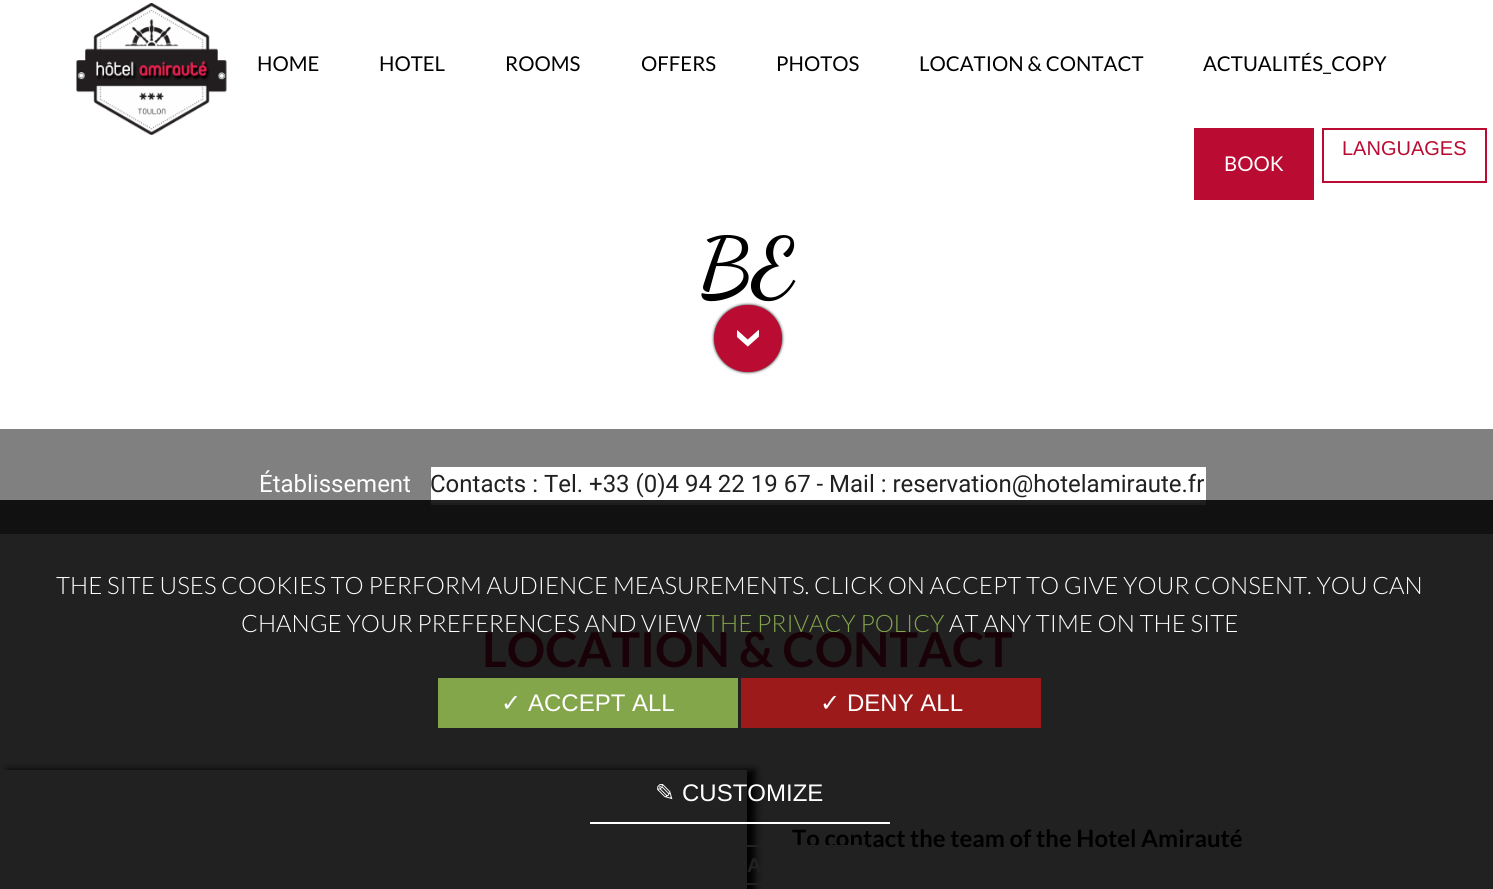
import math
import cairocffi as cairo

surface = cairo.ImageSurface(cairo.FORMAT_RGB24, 1493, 889)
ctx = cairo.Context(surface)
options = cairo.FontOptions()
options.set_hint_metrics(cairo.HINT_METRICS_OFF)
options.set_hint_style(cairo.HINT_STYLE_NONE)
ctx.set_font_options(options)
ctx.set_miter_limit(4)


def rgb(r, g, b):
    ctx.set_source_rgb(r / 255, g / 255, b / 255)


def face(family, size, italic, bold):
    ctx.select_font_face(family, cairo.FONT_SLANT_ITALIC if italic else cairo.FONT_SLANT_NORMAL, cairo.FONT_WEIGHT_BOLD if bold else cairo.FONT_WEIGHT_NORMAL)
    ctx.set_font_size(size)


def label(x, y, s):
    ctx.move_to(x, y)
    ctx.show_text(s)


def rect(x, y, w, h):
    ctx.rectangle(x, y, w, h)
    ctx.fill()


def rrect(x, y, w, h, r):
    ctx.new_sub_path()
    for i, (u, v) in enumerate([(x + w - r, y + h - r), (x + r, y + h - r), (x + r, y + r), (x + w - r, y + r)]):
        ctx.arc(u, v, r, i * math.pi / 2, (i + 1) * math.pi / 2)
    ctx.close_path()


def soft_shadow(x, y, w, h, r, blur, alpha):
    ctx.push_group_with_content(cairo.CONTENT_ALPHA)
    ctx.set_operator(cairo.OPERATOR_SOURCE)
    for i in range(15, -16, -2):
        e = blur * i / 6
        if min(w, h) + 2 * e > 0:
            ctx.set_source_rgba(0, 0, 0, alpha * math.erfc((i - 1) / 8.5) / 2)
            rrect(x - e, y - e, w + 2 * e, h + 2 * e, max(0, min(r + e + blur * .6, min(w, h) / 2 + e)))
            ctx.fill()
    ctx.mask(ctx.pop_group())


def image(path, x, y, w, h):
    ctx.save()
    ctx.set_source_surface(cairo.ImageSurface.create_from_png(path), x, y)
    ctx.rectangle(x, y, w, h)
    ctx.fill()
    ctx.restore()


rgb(255, 255, 255)
ctx.paint()
rgb(33, 33, 33)
rect(0, 534, 1493, 355)
image('image0.png', 76, 3, 151, 132)
face('Lato', 20.4, 0, 0)
rgb(0, 0, 0)
label(257, 71, 'HOME')
label(379, 71, 'HOTEL')
label(505, 71, 'ROOMS')
label(641, 71, 'OFFERS')
label(776, 71, 'PHOTOS')
label(919, 71, 'LOCATION & CONTACT')
label(1203, 71, 'ACTUALITÉS_COPY')
ctx.rectangle(1323, 129, 163, 53)
rgb(186, 11, 50)
ctx.stroke()
face('Liberation Sans', 20, 0, 0)
label(1342, 155, 'LANGUAGES')
rect(1194, 128, 120, 72)
face('Lato', 20.4, 0, 0)
rgb(255, 255, 255)
label(1224, 171, 'BOOK')
rgb(0, 0, 0)
soft_shadow(714, 305, 68, 67, 33.5, 1.5, 1)
face('Dancing Script', 82, 0, 1)
rgb(0, 0, 0)
label(698, 294, 'BE')
rgb(186, 11, 50)
rrect(714, 305, 68, 67, 33.5)
ctx.fill()
image('image1.png', 737, 330, 22, 17)
rgb(128, 128, 128)
rect(0, 429, 1493, 71)
rgb(17, 17, 17)
rect(0, 500, 1493, 34)
face('Roboto', 24, 0, 0)
rgb(255, 255, 255)
label(259, 492, 'Établissement')
rect(431, 467, 775, 33)
rgb(33, 33, 33)
rect(431, 500, 775, 3)
rgb(29, 29, 29)
rect(431, 503, 775, 2)
rgb(33, 33, 33)
label(430, 492, 'Contacts : Tel. +33 (0)4 94 22 19 67 - Mail : reservation@hotelamiraute.fr')
face('Lato Light', 24, 0, 0)
rgb(255, 255, 255)
label(56, 594, 'THE SITE USES COOKIES TO PERFORM AUDIENCE MEASUREMENTS. CLICK ON ACCEPT TO GIVE YOUR CONSENT. YOU CAN')
label(241, 632, 'CHANGE YOUR PREFERENCES AND VIEW')
rgb(132, 166, 75)
label(706, 632, 'THE PRIVACY POLICY')
rgb(255, 255, 255)
label(949, 632, 'AT ANY TIME ON THE SITE')
rgb(132, 166, 75)
rect(438, 678, 300, 50)
face('DejaVu Sans', 24, 0, 0)
rgb(255, 255, 255)
label(501, 711, '✓')
face('Liberation Sans', 24, 0, 0)
label(528, 711, 'ACCEPT ALL')
rgb(156, 26, 26)
rect(741, 678, 300, 50)
face('DejaVu Sans', 24, 0, 0)
rgb(255, 255, 255)
label(820, 711, '✓')
face('Liberation Sans', 24, 0, 0)
label(847, 711, 'DENY ALL')
ctx.save()
ctx.set_fill_rule(cairo.FILL_RULE_EVEN_ODD)
ctx.new_path()
ctx.move_to(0, 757)
ctx.line_to(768, 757)
ctx.line_to(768, 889)
ctx.line_to(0, 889)
ctx.close_path()
ctx.move_to(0, 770)
ctx.line_to(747, 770)
ctx.line_to(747, 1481)
ctx.line_to(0, 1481)
ctx.close_path()
ctx.clip()
rgb(0, 0, 0)
soft_shadow(8, 770, 747, 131, 0, 4, 1)
ctx.restore()
rect(590, 822, 300, 2)
face('DejaVu Sans', 24, 0, 0)
label(655, 801, '✎')
face('Liberation Sans', 24, 0, 0)
label(682, 801, 'CUSTOMIZE')
face('Lato', 48, 0, 1)
rgb(24, 1, 7)
label(482, 667, 'LOCATION & CONTACT')
face('Lato', 23.9, 0, 1)
rgb(0, 0, 0)
label(792, 847, 'To contact the team of the Hotel Amirauté')
ctx.rectangle(628, 846, 238, 38)
rgb(33, 33, 33)
ctx.stroke()
face('Liberation Sans', 20, 0, 1)
label(747, 872, 'A')
surface.write_to_png('render.png')
